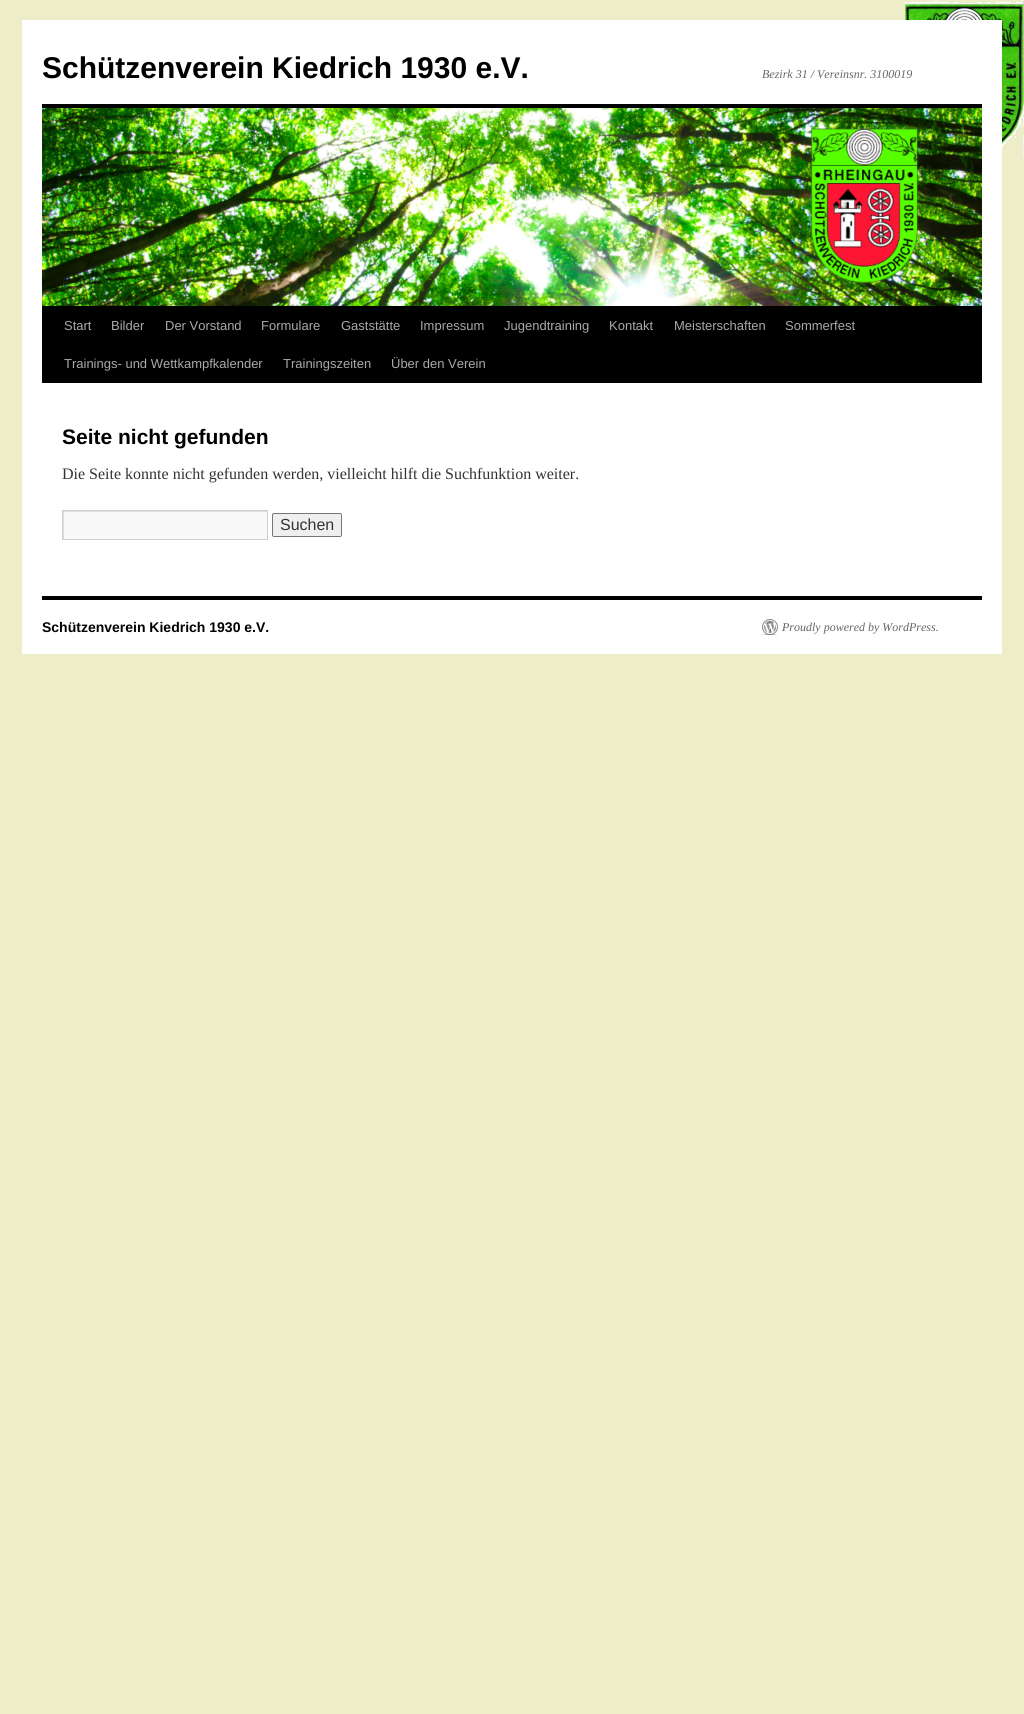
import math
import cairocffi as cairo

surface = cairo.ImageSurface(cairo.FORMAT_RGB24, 1024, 1714)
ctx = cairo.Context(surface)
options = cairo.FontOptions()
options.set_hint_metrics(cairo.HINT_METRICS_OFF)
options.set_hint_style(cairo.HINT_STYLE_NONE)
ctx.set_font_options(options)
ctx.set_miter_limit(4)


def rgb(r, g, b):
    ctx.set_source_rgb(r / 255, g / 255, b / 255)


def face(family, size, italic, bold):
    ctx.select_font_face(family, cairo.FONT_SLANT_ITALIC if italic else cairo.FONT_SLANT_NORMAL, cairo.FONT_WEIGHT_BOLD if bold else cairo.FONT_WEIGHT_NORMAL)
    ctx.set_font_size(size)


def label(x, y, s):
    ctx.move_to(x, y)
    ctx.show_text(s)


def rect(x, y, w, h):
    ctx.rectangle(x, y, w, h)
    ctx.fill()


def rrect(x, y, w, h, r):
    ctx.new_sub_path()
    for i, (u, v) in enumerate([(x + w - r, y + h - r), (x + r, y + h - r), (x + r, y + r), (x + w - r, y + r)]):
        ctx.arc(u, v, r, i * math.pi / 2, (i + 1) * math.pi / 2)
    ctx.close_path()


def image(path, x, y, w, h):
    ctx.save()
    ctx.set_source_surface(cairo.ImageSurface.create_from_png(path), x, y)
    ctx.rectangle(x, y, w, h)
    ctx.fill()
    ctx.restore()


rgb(237, 237, 199)
ctx.paint()
image('image0.png', 905, 0, 119, 157)
rgb(255, 255, 255)
rect(22, 20, 980, 634)
face('Liberation Sans', 30, 0, 1)
rgb(0, 0, 0)
label(42, 78, 'Schützenverein Kiedrich 1930 e.V.')
face('Liberation Serif', 12, 1, 0)
rgb(102, 102, 102)
label(762, 78, 'Bezirk 31 / Vereinsnr. 3100019')
rgb(0, 0, 0)
rect(42, 104, 940, 4)
rect(42, 306, 940, 77)
image('image1.png', 42, 108, 940, 198)
face('Liberation Sans', 13, 0, 0)
rgb(170, 170, 170)
label(64, 330, 'Start')
label(111, 330, 'Bilder')
label(165, 330, 'Der Vorstand')
label(261, 330, 'Formulare')
label(341, 330, 'Gaststätte')
label(420, 330, 'Impressum')
label(504, 330, 'Jugendtraining')
label(609, 330, 'Kontakt')
label(674, 330, 'Meisterschaften')
label(785, 330, 'Sommerfest')
label(64, 368, 'Trainings- und Wettkampfkalender')
label(283, 368, 'Trainingszeiten')
label(391, 368, 'Über den Verein')
face('Liberation Sans', 21, 0, 1)
rgb(0, 0, 0)
label(62, 444, 'Seite nicht gefunden')
face('Liberation Serif', 16, 0, 0)
rgb(51, 51, 51)
label(62, 479, 'Die Seite konnte nicht gefunden werden, vielleicht hilft die Suchfunktion weiter.')
rgb(249, 249, 249)
rect(64, 512, 203, 27)
ctx.save()
ctx.rectangle(63, 511, 204, 28)
ctx.clip()
rgb(224, 224, 224)
ctx.set_fill_rule(cairo.FILL_RULE_EVEN_ODD)
ctx.new_path()
ctx.move_to(-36, 412)
ctx.line_to(366, 412)
ctx.line_to(366, 638)
ctx.line_to(-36, 638)
ctx.close_path()
ctx.move_to(64, 512)
ctx.line_to(268, 512)
ctx.line_to(268, 540)
ctx.line_to(64, 540)
ctx.close_path()
ctx.fill()
ctx.restore()
ctx.rectangle(62.5, 510.5, 205, 29)
rgb(204, 204, 204)
ctx.set_line_width(1)
ctx.stroke()
rgb(239, 239, 239)
rrect(272.5, 513.5, 69, 23, 1.5)
ctx.fill_preserve()
rgb(118, 118, 118)
ctx.stroke()
face('Liberation Sans', 16, 0, 0)
rgb(51, 51, 51)
label(280, 530, 'Suchen')
rgb(0, 0, 0)
rect(42, 596, 940, 4)
face('Liberation Sans', 14, 0, 1)
label(42, 632, 'Schützenverein Kiedrich 1930 e.V.')
image('image2.png', 762, 619, 16, 16)
face('Liberation Serif', 12, 1, 0)
rgb(102, 102, 102)
label(782, 631, 'Proudly powered by WordPress.')
surface.write_to_png('render.png')
